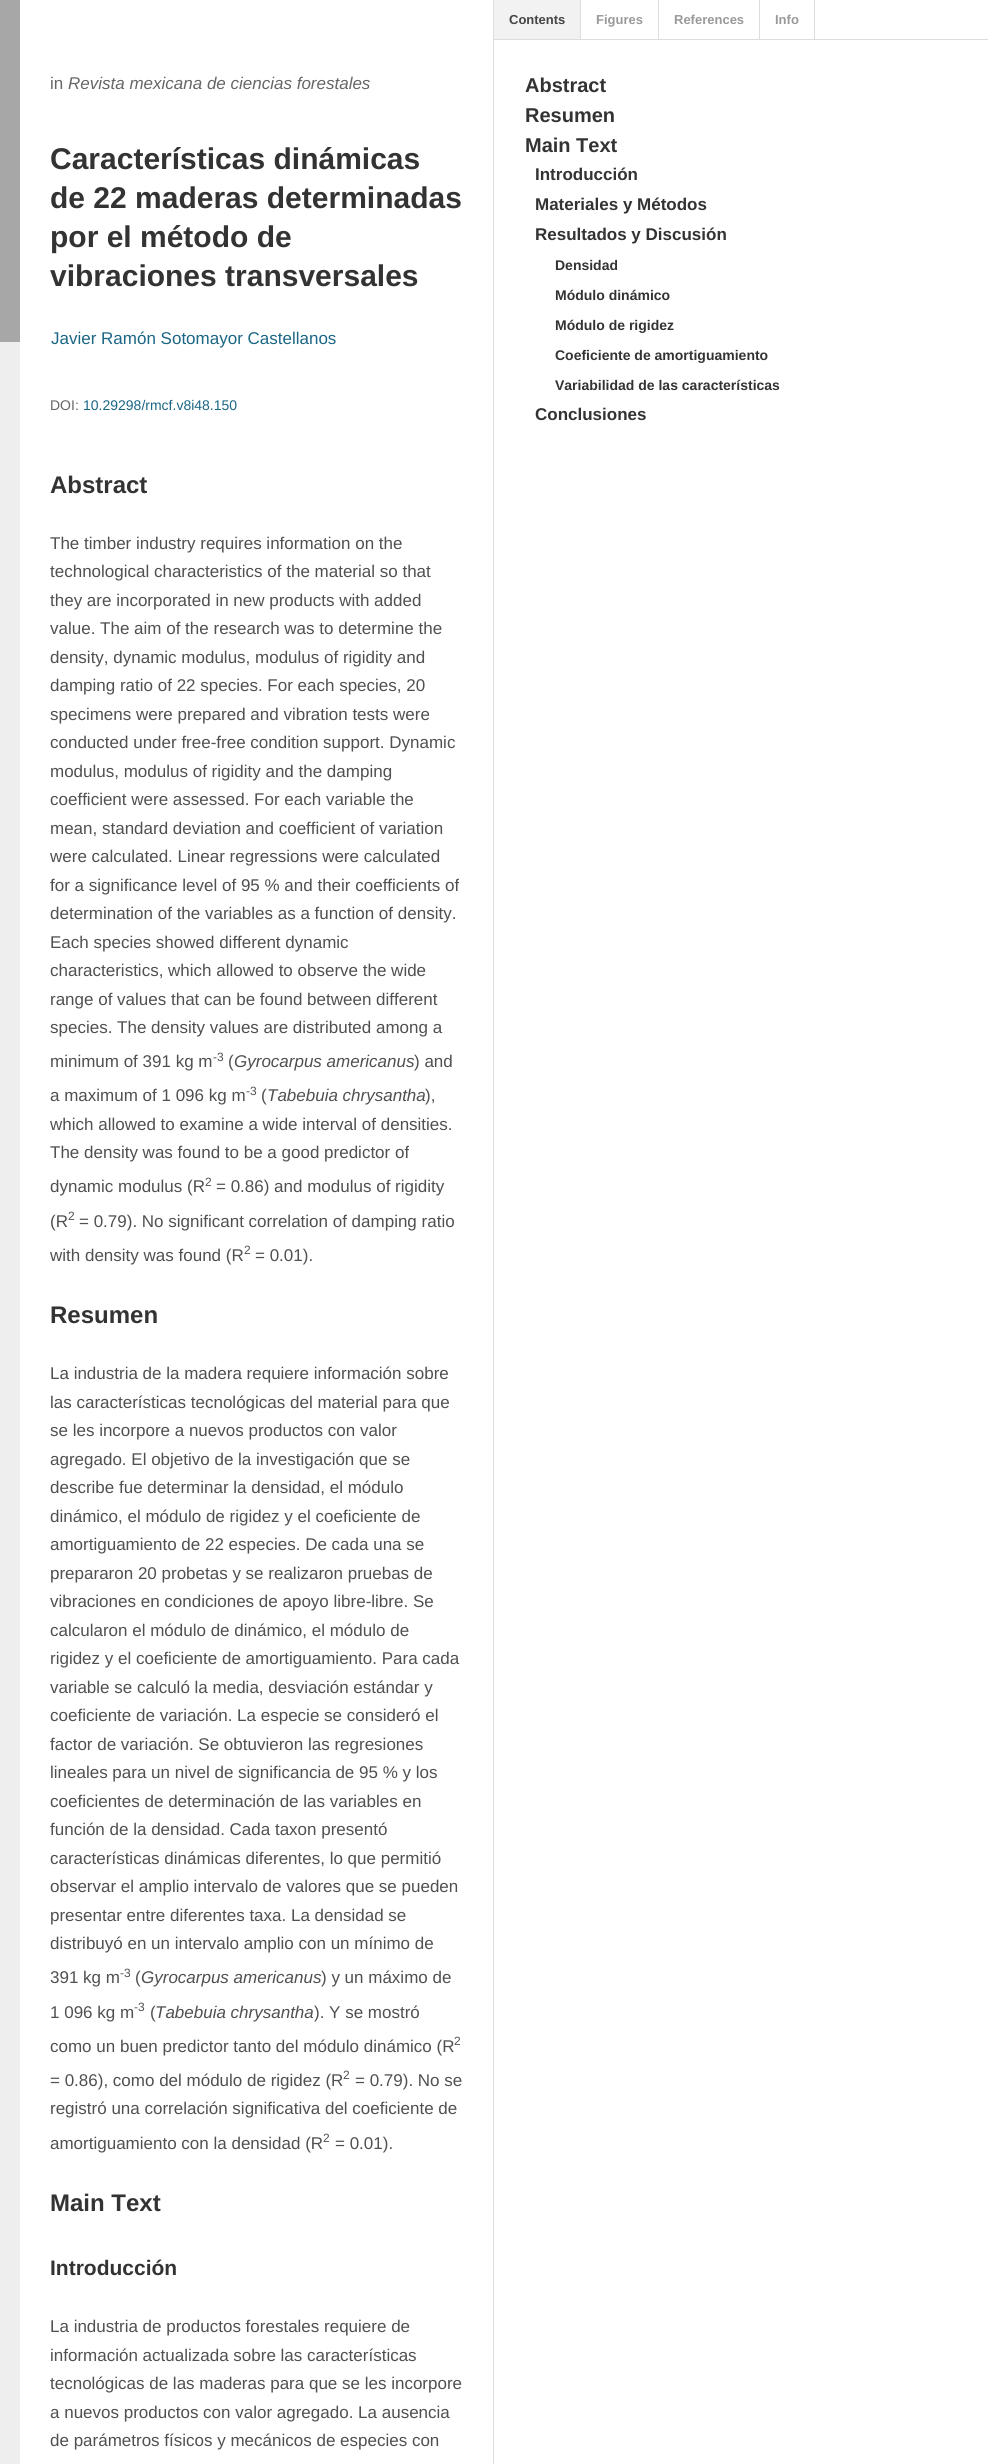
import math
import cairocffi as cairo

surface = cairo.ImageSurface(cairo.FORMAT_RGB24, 988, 2464)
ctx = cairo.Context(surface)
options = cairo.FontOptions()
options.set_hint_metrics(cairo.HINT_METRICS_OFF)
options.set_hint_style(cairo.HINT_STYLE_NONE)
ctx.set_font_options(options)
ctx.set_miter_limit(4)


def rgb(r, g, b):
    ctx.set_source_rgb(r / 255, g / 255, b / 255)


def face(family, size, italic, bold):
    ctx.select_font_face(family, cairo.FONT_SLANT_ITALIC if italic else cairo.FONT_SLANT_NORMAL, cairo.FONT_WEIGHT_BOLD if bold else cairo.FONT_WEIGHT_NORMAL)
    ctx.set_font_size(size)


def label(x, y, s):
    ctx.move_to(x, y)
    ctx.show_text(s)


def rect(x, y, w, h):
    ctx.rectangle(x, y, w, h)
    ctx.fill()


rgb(255, 255, 255)
ctx.paint()
rgb(221, 221, 221)
rect(493, 0, 1, 2464)
rgb(238, 238, 238)
rect(0, 342, 20, 2122)
rgb(167, 167, 167)
rect(0, 0, 20, 342)
face('Liberation Sans', 17, 0, 0)
rgb(102, 102, 102)
label(50, 89, 'in')
face('Liberation Sans', 17, 1, 0)
label(68, 89, 'Revista mexicana de ciencias forestales')
face('Liberation Sans', 30, 0, 1)
rgb(51, 51, 51)
label(50, 169, 'Características dinámicas')
label(50, 208, 'de 22 maderas determinadas')
label(50, 247, 'por el método de')
label(50, 286, 'vibraciones transversales')
face('Liberation Sans', 17, 0, 0)
rgb(27, 102, 133)
label(51, 344, 'Javier Ramón Sotomayor Castellanos')
face('Liberation Sans', 14, 0, 0)
rgb(102, 102, 102)
label(50, 410, 'DOI:')
rgb(27, 102, 133)
label(83, 410, '10.29298/rmcf.v8i48.150')
face('Liberation Sans', 24, 0, 1)
rgb(51, 51, 51)
label(50, 493, 'Abstract')
face('Liberation Sans', 17, 0, 0)
rgb(80, 80, 80)
label(50, 549, 'The timber industry requires information on the')
label(50, 577, 'technological characteristics of the material so that')
label(50, 606, 'they are incorporated in new products with added')
label(50, 634, 'value. The aim of the research was to determine the')
label(50, 663, 'density, dynamic modulus, modulus of rigidity and')
label(50, 691, 'damping ratio of 22 species. For each species, 20')
label(50, 720, 'specimens were prepared and vibration tests were')
label(50, 748, 'conducted under free-free condition support. Dynamic')
label(50, 777, 'modulus, modulus of rigidity and the damping')
label(50, 805, 'coefficient were assessed. For each variable the')
label(50, 834, 'mean, standard deviation and coefficient of variation')
label(50, 862, 'were calculated. Linear regressions were calculated')
label(50, 891, 'for a significance level of 95 % and their coefficients of')
label(50, 919, 'determination of the variables as a function of density.')
label(50, 948, 'Each species showed different dynamic')
label(50, 976, 'characteristics, which allowed to observe the wide')
label(50, 1005, 'range of values that can be found between different')
label(50, 1033, 'species. The density values are distributed among a')
label(50, 1067, 'minimum of 391 kg m')
face('Liberation Sans', 12, 0, 0)
label(213, 1061, '-3')
face('Liberation Sans', 17, 0, 0)
label(228, 1067, '(')
face('Liberation Sans', 17, 1, 0)
label(234, 1067, 'Gyrocarpus americanus')
face('Liberation Sans', 17, 0, 0)
label(414, 1067, ') and')
label(50, 1101, 'a maximum of 1 096 kg m')
face('Liberation Sans', 12, 0, 0)
label(246, 1095, '-3')
face('Liberation Sans', 17, 0, 0)
label(261, 1101, '(')
face('Liberation Sans', 17, 1, 0)
label(267, 1101, 'Tabebuia chrysantha')
face('Liberation Sans', 17, 0, 0)
label(425, 1101, '),')
label(50, 1130, 'which allowed to examine a wide interval of densities.')
label(50, 1158, 'The density was found to be a good predictor of')
label(50, 1192, 'dynamic modulus (R')
face('Liberation Sans', 12, 0, 0)
label(205, 1186, '2')
face('Liberation Sans', 17, 0, 0)
label(216, 1192, '= 0.86) and modulus of rigidity')
label(50, 1227, '(R')
face('Liberation Sans', 12, 0, 0)
label(68, 1220, '2')
face('Liberation Sans', 17, 0, 0)
label(79, 1227, '= 0.79). No significant correlation of damping ratio')
label(50, 1261, 'with density was found (R')
face('Liberation Sans', 12, 0, 0)
label(244, 1254, '2')
face('Liberation Sans', 17, 0, 0)
label(255, 1261, '= 0.01).')
face('Liberation Sans', 24, 0, 1)
rgb(51, 51, 51)
label(50, 1323, 'Resumen')
face('Liberation Sans', 17, 0, 0)
rgb(80, 80, 80)
label(50, 1379, 'La industria de la madera requiere información sobre')
label(50, 1408, 'las características tecnológicas del material para que')
label(50, 1436, 'se les incorpore a nuevos productos con valor')
label(50, 1465, 'agregado. El objetivo de la investigación que se')
label(50, 1493, 'describe fue determinar la densidad, el módulo')
label(50, 1522, 'dinámico, el módulo de rigidez y el coeficiente de')
label(50, 1550, 'amortiguamiento de 22 especies. De cada una se')
label(50, 1579, 'prepararon 20 probetas y se realizaron pruebas de')
label(50, 1607, 'vibraciones en condiciones de apoyo libre-libre. Se')
label(50, 1636, 'calcularon el módulo de dinámico, el módulo de')
label(50, 1664, 'rigidez y el coeficiente de amortiguamiento. Para cada')
label(50, 1693, 'variable se calculó la media, desviación estándar y')
label(50, 1721, 'coeficiente de variación. La especie se consideró el')
label(50, 1750, 'factor de variación. Se obtuvieron las regresiones')
label(50, 1778, 'lineales para un nivel de significancia de 95 % y los')
label(50, 1807, 'coeficientes de determinación de las variables en')
label(50, 1835, 'función de la densidad. Cada taxon presentó')
label(50, 1864, 'características dinámicas diferentes, lo que permitió')
label(50, 1892, 'observar el amplio intervalo de valores que se pueden')
label(50, 1921, 'presentar entre diferentes taxa. La densidad se')
label(50, 1949, 'distribuyó en un intervalo amplio con un mínimo de')
label(50, 1983, '391 kg m')
face('Liberation Sans', 12, 0, 0)
label(120, 1977, '-3')
face('Liberation Sans', 17, 0, 0)
label(135, 1983, '(')
face('Liberation Sans', 17, 1, 0)
label(141, 1983, 'Gyrocarpus americanus')
face('Liberation Sans', 17, 0, 0)
label(321, 1983, ') y un máximo de')
label(50, 2018, '1 096 kg m')
face('Liberation Sans', 12, 0, 0)
label(134, 2011, '-3')
face('Liberation Sans', 17, 0, 0)
label(150, 2018, '(')
face('Liberation Sans', 17, 1, 0)
label(155, 2018, 'Tabebuia chrysantha')
face('Liberation Sans', 17, 0, 0)
label(314, 2018, '). Y se mostró')
label(50, 2052, 'como un buen predictor tanto del módulo dinámico (R')
face('Liberation Sans', 12, 0, 0)
label(454, 2045, '2')
face('Liberation Sans', 17, 0, 0)
label(50, 2086, '= 0.86), como del módulo de rigidez (R')
face('Liberation Sans', 12, 0, 0)
label(343, 2079, '2')
face('Liberation Sans', 17, 0, 0)
label(355, 2086, '= 0.79). No se')
label(50, 2114, 'registró una correlación significativa del coeficiente de')
label(50, 2149, 'amortiguamiento con la densidad (R')
face('Liberation Sans', 12, 0, 0)
label(323, 2142, '2')
face('Liberation Sans', 17, 0, 0)
label(335, 2149, '= 0.01).')
face('Liberation Sans', 24, 0, 1)
rgb(51, 51, 51)
label(50, 2211, 'Main Text')
face('Liberation Sans', 21, 0, 1)
label(50, 2275, 'Introducción')
face('Liberation Sans', 17, 0, 0)
rgb(80, 80, 80)
label(50, 2332, 'La industria de productos forestales requiere de')
label(50, 2361, 'información actualizada sobre las características')
label(50, 2389, 'tecnológicas de las maderas para que se les incorpore')
label(50, 2418, 'a nuevos productos con valor agregado. La ausencia')
label(50, 2446, 'de parámetros físicos y mecánicos de especies con')
rgb(221, 221, 221)
rect(494, 39, 494, 1)
rgb(242, 242, 242)
rect(494, 0, 86, 39)
ctx.save()
ctx.rectangle(494, 0, 494, 39)
ctx.clip()
rgb(221, 221, 221)
ctx.new_path()
ctx.move_to(581, 0)
ctx.line_to(581, 43)
ctx.line_to(580, 40)
ctx.line_to(580, 0)
ctx.close_path()
ctx.fill()
ctx.restore()
face('Liberation Sans', 13, 0, 1)
rgb(68, 68, 68)
label(509, 24, 'Contents')
rgb(221, 221, 221)
rect(658, 0, 1, 39)
rgb(153, 153, 153)
label(596, 24, 'Figures')
rgb(221, 221, 221)
rect(759, 0, 1, 39)
rgb(153, 153, 153)
label(674, 24, 'References')
rgb(221, 221, 221)
rect(814, 0, 1, 39)
rgb(153, 153, 153)
label(775, 24, 'Info')
face('Liberation Sans', 20, 0, 1)
rgb(51, 51, 51)
label(525, 92, 'Abstract')
label(525, 122, 'Resumen')
label(525, 152, 'Main Text')
face('Liberation Sans', 17, 0, 1)
label(535, 180, 'Introducción')
label(535, 210, 'Materiales y Métodos')
label(535, 240, 'Resultados y Discusión')
face('Liberation Sans', 14, 0, 1)
label(555, 270, 'Densidad')
label(555, 300, 'Módulo dinámico')
label(555, 330, 'Módulo de rigidez')
label(555, 360, 'Coeficiente de amortiguamiento')
label(555, 390, 'Variabilidad de las características')
face('Liberation Sans', 17, 0, 1)
label(535, 420, 'Conclusiones')
surface.write_to_png('render.png')
